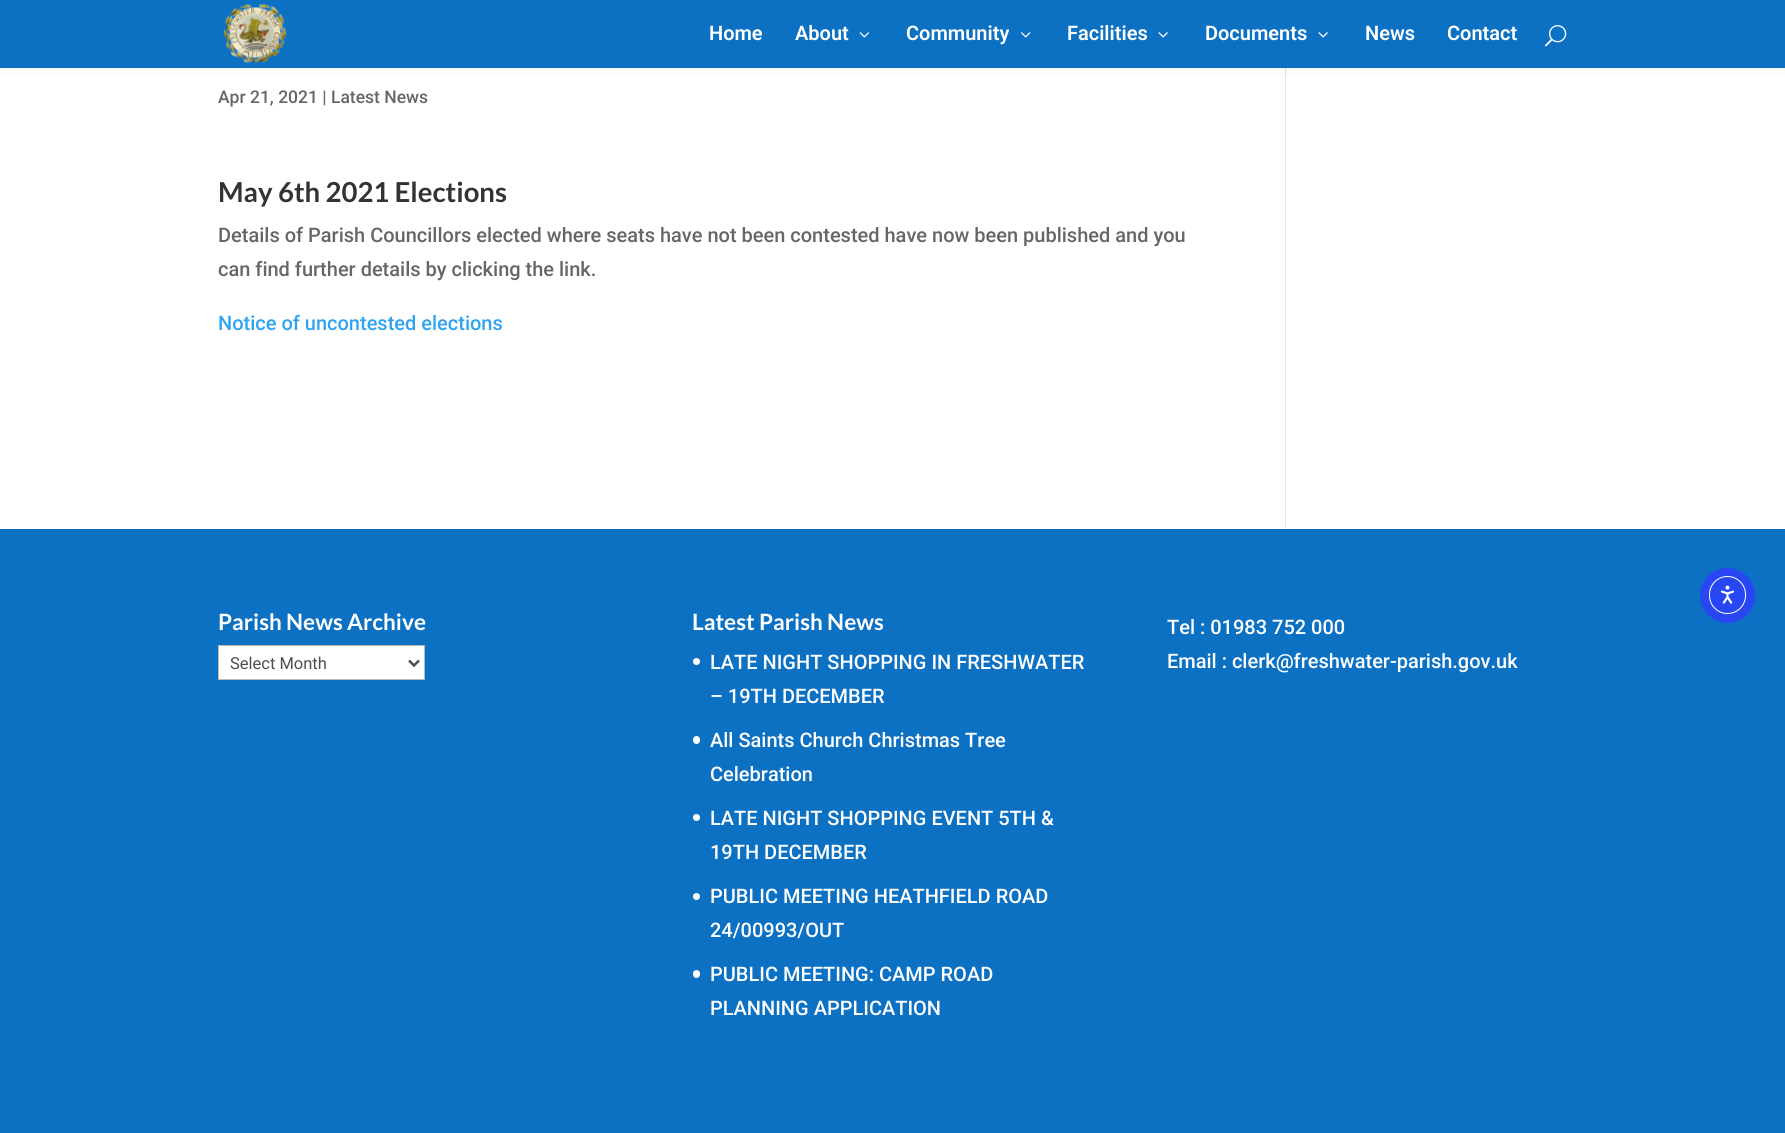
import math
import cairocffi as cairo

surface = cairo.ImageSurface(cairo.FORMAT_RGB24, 1785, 1133)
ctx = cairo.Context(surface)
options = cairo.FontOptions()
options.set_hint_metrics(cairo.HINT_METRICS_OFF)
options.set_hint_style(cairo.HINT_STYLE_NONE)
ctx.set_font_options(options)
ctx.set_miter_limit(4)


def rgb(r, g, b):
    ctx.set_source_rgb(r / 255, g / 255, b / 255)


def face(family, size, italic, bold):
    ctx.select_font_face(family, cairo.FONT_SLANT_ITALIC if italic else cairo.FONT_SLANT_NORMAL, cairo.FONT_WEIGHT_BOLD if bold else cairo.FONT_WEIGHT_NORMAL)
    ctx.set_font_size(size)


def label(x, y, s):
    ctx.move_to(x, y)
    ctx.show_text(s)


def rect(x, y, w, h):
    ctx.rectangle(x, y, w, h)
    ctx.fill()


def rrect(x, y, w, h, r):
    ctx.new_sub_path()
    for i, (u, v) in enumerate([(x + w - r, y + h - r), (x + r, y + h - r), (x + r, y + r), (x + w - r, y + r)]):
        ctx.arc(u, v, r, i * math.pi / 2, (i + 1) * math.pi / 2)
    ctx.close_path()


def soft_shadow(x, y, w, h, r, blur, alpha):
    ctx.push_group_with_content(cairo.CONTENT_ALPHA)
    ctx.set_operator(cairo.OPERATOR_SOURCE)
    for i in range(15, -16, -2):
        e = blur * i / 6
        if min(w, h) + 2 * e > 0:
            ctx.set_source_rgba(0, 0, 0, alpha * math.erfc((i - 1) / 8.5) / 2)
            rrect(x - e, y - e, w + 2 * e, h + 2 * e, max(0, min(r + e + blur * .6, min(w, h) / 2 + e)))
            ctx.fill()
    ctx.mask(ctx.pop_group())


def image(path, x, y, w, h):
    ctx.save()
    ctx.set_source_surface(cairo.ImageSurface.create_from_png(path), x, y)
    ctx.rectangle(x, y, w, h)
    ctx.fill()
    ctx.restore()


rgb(12, 113, 195)
ctx.paint()
rgb(255, 255, 255)
rect(0, 68, 1785, 461)
rgb(226, 226, 226)
rect(1285, 68, 1, 461)
rgb(0, 0, 0)
soft_shadow(0, 0, 1785, 68, 0, 4.5, 0.1)
rgb(12, 113, 195)
rect(0, 0, 1785, 68)
image('image0.png', 223, 4, 64, 60)
face('Roboto SemiBold', 20, 0, 0)
rgb(255, 255, 255)
label(709, 40, 'Home')
label(795, 40, 'About')
image('image1.png', 859, 32, 10, 6)
label(906, 40, 'Community')
image('image2.png', 1021, 32, 10, 6)
label(1067, 40, 'Facilities')
image('image3.png', 1158, 32, 10, 6)
label(1205, 40, 'Documents')
image('image3.png', 1318, 32, 10, 6)
label(1365, 40, 'News')
label(1447, 40, 'Contact')
image('image4.png', 1545, 25, 22, 22)
face('Roboto Medium', 17.5, 0, 0)
rgb(102, 102, 102)
label(218, 103, 'Apr 21, 2021 | Latest News')
face('Lato', 27.5, 0, 1)
rgb(51, 51, 51)
label(218, 202, 'May 6th 2021 Elections')
face('Roboto Medium', 20, 0, 0)
rgb(102, 102, 102)
label(218, 242, 'Details of Parish Councillors elected where seats have not been contested have now been published and you')
label(218, 276, 'can find further details by clicking the link.')
rgb(46, 163, 242)
label(218, 330, 'Notice of uncontested elections')
face('Lato', 22.5, 0, 1)
rgb(255, 255, 255)
label(218, 630, 'Parish News Archive')
ctx.rectangle(218.5, 645.5, 206, 34)
ctx.fill_preserve()
rgb(187, 187, 187)
ctx.set_line_width(1)
ctx.stroke()
ctx.new_path()
ctx.move_to(409, 660.5)
ctx.line_to(414, 665.5)
ctx.line_to(419, 660.5)
rgb(78, 78, 78)
ctx.set_line_width(2.5)
ctx.stroke()
face('Roboto', 16.5, 0, 0)
label(230, 669, 'Select Month')
face('Lato', 22.5, 0, 1)
rgb(255, 255, 255)
label(692, 630, 'Latest Parish News')
ctx.new_path()
ctx.arc(696.5, 661.5, 3.5, 0, 2 * math.pi)
ctx.fill()
face('Roboto Medium', 20, 0, 0)
label(710, 669, 'LATE NIGHT SHOPPING IN FRESHWATER')
label(710, 703, '– 19TH DECEMBER')
rrect(693, 736, 7, 8, 3.5)
ctx.fill()
label(710, 747, 'All Saints Church Christmas Tree')
label(710, 781, 'Celebration')
ctx.new_path()
ctx.arc(696.5, 817.5, 3.5, 0, 2 * math.pi)
ctx.fill()
label(710, 825, 'LATE NIGHT SHOPPING EVENT 5TH &')
label(710, 859, '19TH DECEMBER')
ctx.new_path()
ctx.arc(696.5, 896.5, 3.5, 0, 2 * math.pi)
ctx.fill()
label(710, 903, 'PUBLIC MEETING HEATHFIELD ROAD')
label(710, 937, '24/00993/OUT')
rrect(693, 970, 7, 8, 3.5)
ctx.fill()
label(710, 981, 'PUBLIC MEETING: CAMP ROAD')
label(710, 1015, 'PLANNING APPLICATION')
label(1167, 634, 'Tel : 01983 752 000')
label(1167, 668, 'Email : clerk@freshwater-parish.gov.uk')
rgb(40, 71, 243)
ctx.new_path()
ctx.arc(1727.5, 595.5, 27.5, 0, 2 * math.pi)
ctx.fill()
rrect(1709.5, 576.5, 36, 37, 18)
rgb(255, 255, 255)
ctx.set_line_width(1)
ctx.stroke()
image('image5.png', 1720, 585, 14, 19)
surface.write_to_png('render.png')
